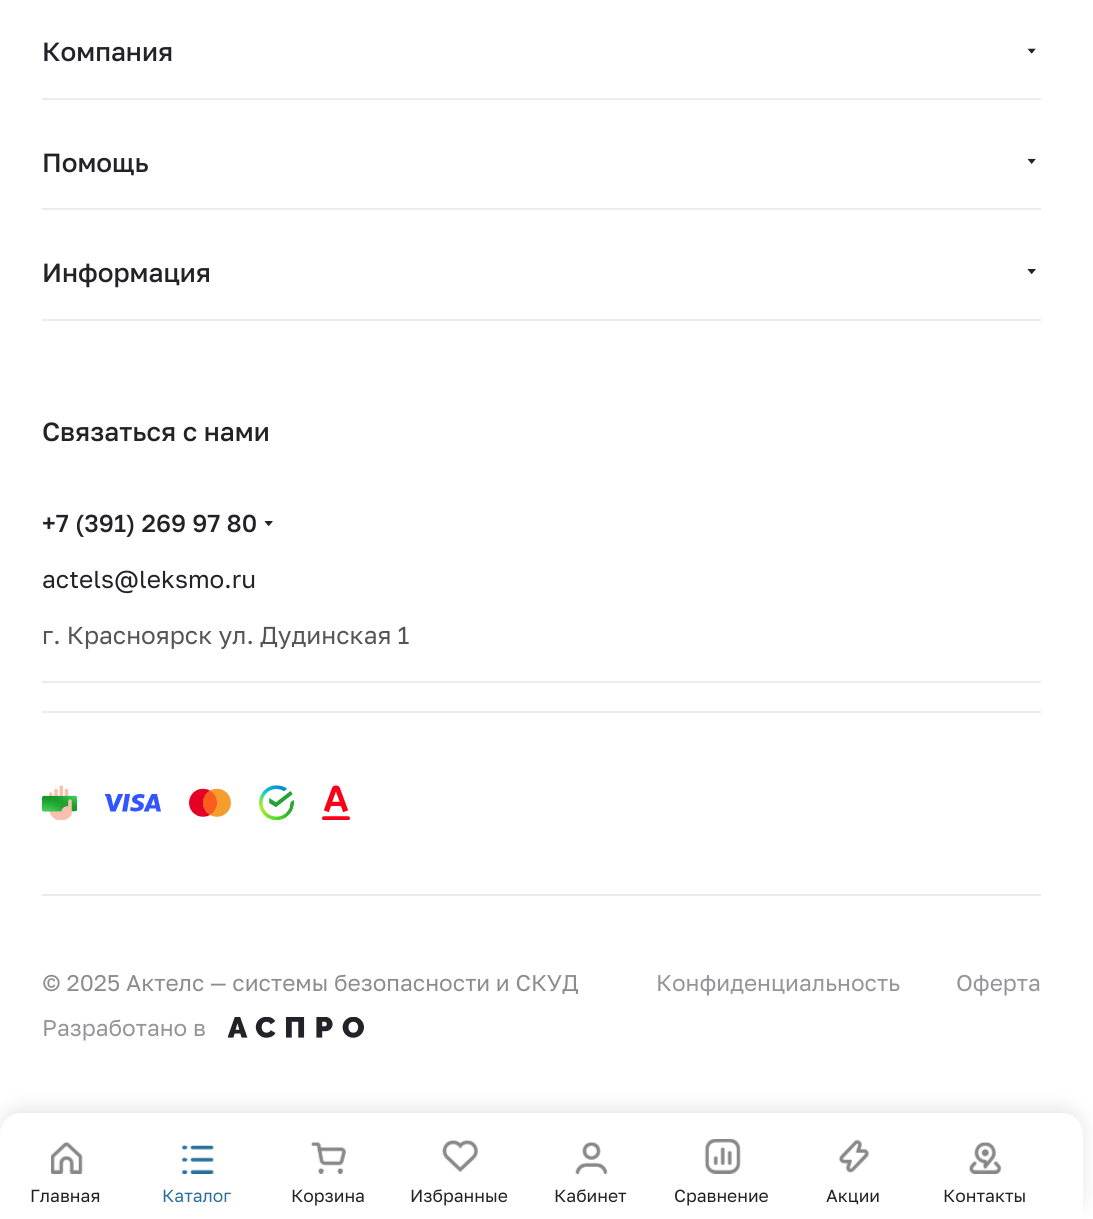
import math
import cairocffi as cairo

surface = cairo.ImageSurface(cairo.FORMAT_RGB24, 1093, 1219)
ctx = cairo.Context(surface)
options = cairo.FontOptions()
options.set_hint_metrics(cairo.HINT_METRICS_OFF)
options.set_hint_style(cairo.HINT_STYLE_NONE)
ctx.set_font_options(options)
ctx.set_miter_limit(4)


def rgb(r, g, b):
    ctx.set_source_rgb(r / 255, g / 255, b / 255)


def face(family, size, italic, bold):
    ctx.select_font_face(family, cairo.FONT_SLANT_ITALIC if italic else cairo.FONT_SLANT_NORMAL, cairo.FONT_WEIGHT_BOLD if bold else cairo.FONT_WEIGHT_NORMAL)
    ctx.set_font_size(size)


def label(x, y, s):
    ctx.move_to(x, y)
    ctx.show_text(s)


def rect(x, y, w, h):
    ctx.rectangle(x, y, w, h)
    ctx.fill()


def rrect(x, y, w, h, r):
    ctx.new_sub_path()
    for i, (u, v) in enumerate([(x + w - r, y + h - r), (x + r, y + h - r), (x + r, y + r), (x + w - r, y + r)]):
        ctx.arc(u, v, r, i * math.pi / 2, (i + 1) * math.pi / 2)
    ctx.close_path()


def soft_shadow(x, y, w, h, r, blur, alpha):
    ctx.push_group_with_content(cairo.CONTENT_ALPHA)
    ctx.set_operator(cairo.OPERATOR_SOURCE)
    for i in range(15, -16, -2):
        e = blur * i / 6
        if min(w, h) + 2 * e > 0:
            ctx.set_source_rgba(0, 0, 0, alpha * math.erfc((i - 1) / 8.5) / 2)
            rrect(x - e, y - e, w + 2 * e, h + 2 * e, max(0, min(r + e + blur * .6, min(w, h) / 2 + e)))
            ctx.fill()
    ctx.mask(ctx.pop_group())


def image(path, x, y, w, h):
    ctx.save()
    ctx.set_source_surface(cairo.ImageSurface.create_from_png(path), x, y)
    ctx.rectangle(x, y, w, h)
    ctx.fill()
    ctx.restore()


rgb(255, 255, 255)
ctx.paint()
rgb(235, 236, 239)
rect(42, 98, 999, 2)
face('Golos Text Medium', 26.25, 0, 0)
rgb(34, 34, 40)
label(42, 61, 'Компания')
image('image0.png', 1027, 48, 9, 6)
rgb(235, 236, 239)
rect(42, 208, 999, 2)
rgb(34, 34, 40)
label(42, 172, 'Помощь')
image('image1.png', 1027, 158, 9, 6)
rgb(235, 236, 239)
rect(42, 319, 999, 2)
rgb(34, 34, 40)
label(42, 282, 'Информация')
image('image2.png', 1027, 269, 9, 5)
rgb(235, 236, 239)
rect(42, 711, 999, 2)
rgb(34, 34, 40)
label(42, 441, 'Связаться с нами')
rgb(235, 236, 239)
rect(42, 681, 999, 2)
face('Golos Text Medium', 24.5, 0, 0)
rgb(34, 34, 40)
label(42, 532, '+7 (391) 269 97 80')
image('image2.png', 264, 521, 9, 5)
face('Golos Text', 24.5, 0, 0)
label(42, 588, 'actels@leksmo.ru')
rgb(85, 85, 88)
label(42, 644, 'г. Красноярск ул. Дудинская 1')
image('image3.png', 42, 785, 35, 35)
image('image4.png', 105, 794, 56, 18)
image('image5.png', 189, 788, 42, 29)
image('image6.png', 259, 785, 35, 35)
image('image7.png', 322, 785, 28, 35)
rgb(235, 235, 238)
rect(42, 894, 999, 2)
face('Golos Text', 22.75, 0, 0)
rgb(141, 141, 141)
label(42, 991, '© 2025 Актелс — системы безопасности и СКУД')
rgb(149, 149, 152)
label(656, 991, 'Конфиденциальность')
label(956, 991, 'Оферта')
label(42, 1036, 'Разработано в')
image('image8.png', 228, 1017, 136, 21)
rgb(0, 0, 0)
soft_shadow(0, 1108, 1083, 107, 21, 9, 0.1)
rgb(255, 255, 255)
ctx.new_path()
ctx.move_to(21, 1113)
ctx.line_to(1062, 1113)
ctx.curve_to(1073.5, 1113, 1083, 1122.5, 1083, 1134)
ctx.line_to(1083, 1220)
ctx.line_to(0, 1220)
ctx.line_to(0, 1134)
ctx.curve_to(0, 1122.5, 9.5, 1113, 21, 1113)
ctx.close_path()
ctx.fill()
image('image9.png', 51, 1141, 32, 33)
face('Golos Text', 17.5, 0, 0)
rgb(34, 34, 40)
label(30, 1202, 'Главная')
image('image10.png', 181, 1145, 33, 29)
rgb(42, 111, 154)
label(162, 1202, 'Каталог')
image('image11.png', 311, 1141, 35, 33)
rgb(34, 34, 40)
label(291, 1202, 'Корзина')
image('image12.png', 442, 1139, 36, 33)
label(410, 1202, 'Избранные')
image('image13.png', 575, 1141, 33, 33)
label(554, 1202, 'Кабинет')
image('image14.png', 704, 1139, 37, 35)
label(674, 1202, 'Сравнение')
image('image15.png', 838, 1139, 31, 34)
label(826, 1202, 'Акции')
image('image16.png', 969, 1141, 33, 33)
label(943, 1202, 'Контакты')
surface.write_to_png('render.png')
